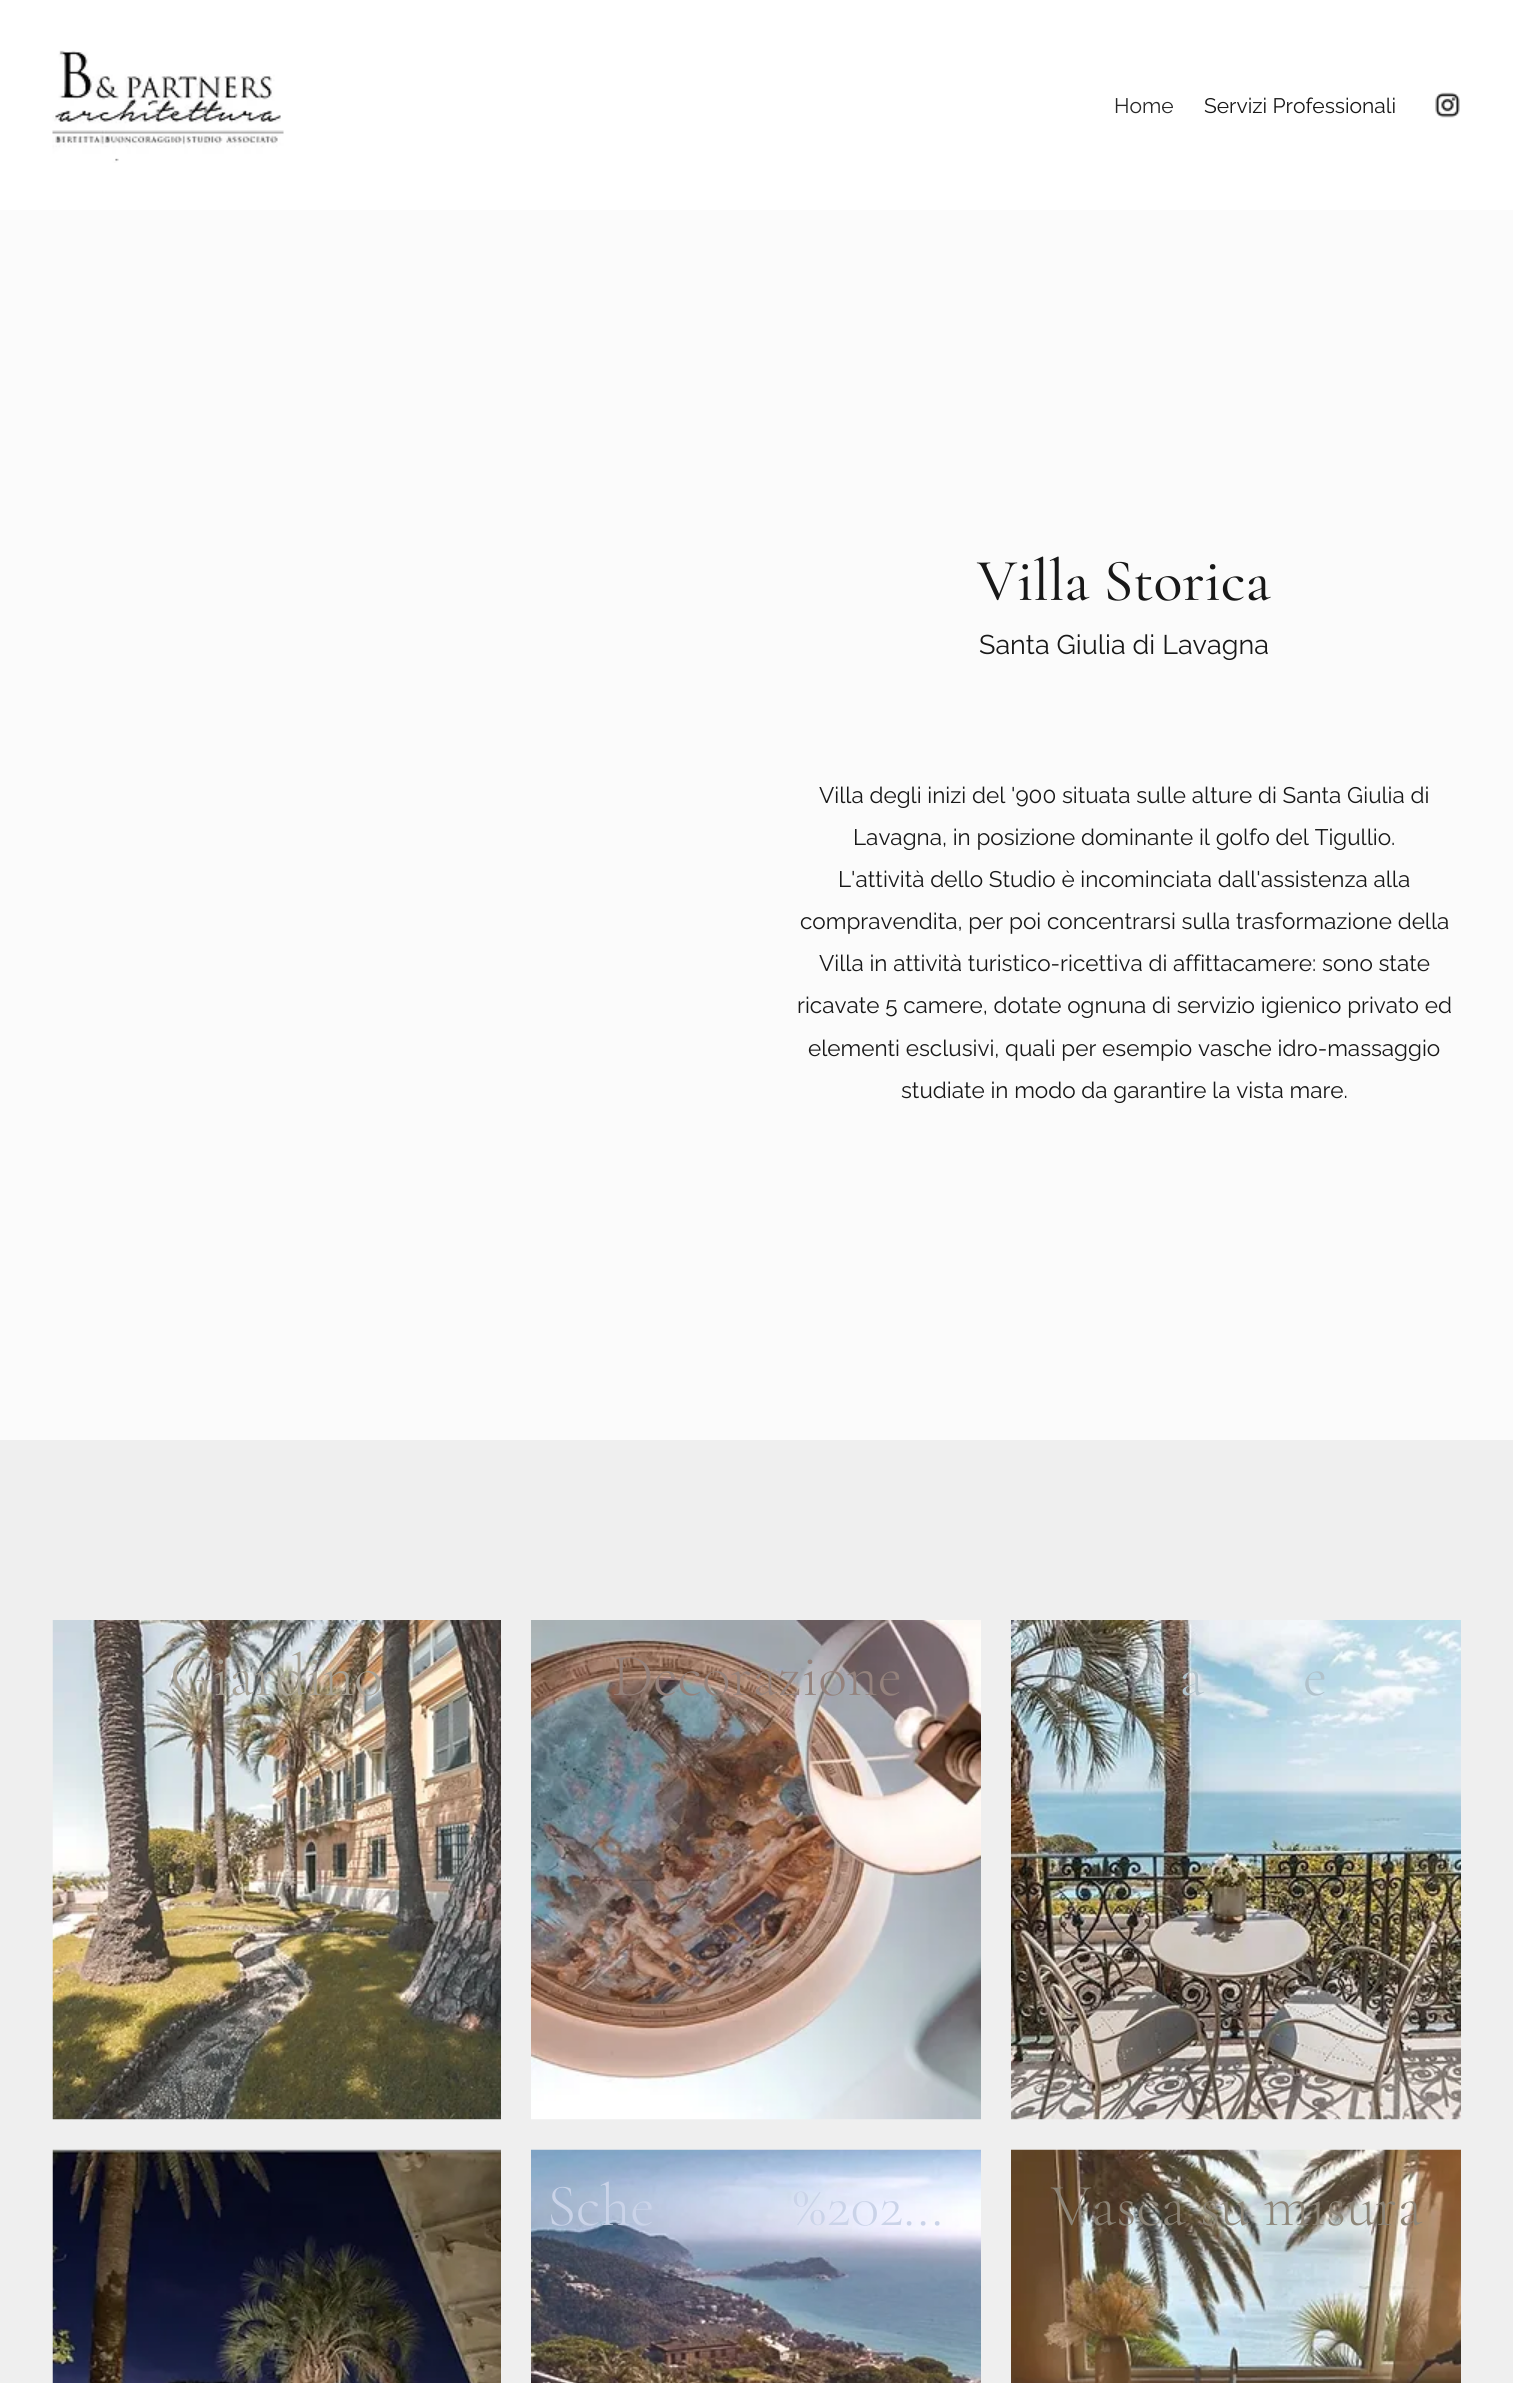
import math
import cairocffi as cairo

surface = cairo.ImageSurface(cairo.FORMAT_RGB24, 1513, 2383)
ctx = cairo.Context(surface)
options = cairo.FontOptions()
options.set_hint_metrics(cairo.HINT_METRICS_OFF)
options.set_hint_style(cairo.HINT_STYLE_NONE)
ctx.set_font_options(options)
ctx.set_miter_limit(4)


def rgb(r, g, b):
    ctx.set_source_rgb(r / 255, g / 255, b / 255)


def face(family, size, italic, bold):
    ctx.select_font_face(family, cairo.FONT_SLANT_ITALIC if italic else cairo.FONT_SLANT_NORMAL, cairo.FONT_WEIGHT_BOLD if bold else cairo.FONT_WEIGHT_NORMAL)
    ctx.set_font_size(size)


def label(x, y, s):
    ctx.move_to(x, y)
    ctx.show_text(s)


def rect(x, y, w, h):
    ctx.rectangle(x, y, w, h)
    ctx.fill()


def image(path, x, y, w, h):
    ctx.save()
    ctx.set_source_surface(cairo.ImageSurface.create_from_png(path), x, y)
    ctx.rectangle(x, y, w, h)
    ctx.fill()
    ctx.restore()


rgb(255, 255, 255)
ctx.paint()
image('image0.png', 52, 50, 232, 113)
face('Raleway', 21, 0, 0)
rgb(40, 40, 40)
label(1114, 113, 'Home')
rgb(24, 24, 24)
label(1204, 113, 'Servizi Professionali')
image('image1.png', 1435, 92, 25, 26)
rgb(251, 251, 251)
rect(0, 210, 1513, 1230)
face('Cormorant Garamond Medium', 60, 0, 0)
rgb(24, 24, 24)
label(977, 600, 'Villa Storica')
face('Raleway', 27, 0, 0)
label(979, 654, 'Santa Giulia di Lavagna')
face('Raleway', 22.5, 0, 0)
label(819, 803, 'Villa degli inizi del \'900 situata sulle alture di Santa Giulia di')
label(853, 845, 'Lavagna, in posizione dominante il golfo del Tigullio.')
label(838, 887, 'L\'attività dello Studio è incominciata dall\'assistenza alla')
label(800, 929, 'compravendita, per poi concentrarsi sulla trasformazione della')
label(819, 971, 'Villa in attività turistico-ricettiva di affittacamere: sono state')
label(797, 1013, 'ricavate 5 camere, dotate ognuna di servizio igienico privato ed')
label(808, 1056, 'elementi esclusivi, quali per esempio vasche idro-massaggio')
label(901, 1098, 'studiate in modo da garantire la vista mare.')
rgb(239, 239, 239)
rect(0, 1440, 1513, 943)
image('image2.png', 52, 1620, 449, 500)
face('Cormorant Garamond Light', 60, 0, 0)
rgb(168, 162, 150)
label(170, 1695, 'Giardino')
image('image3.png', 531, 1620, 450, 500)
rgb(148, 130, 124)
label(612, 1695, 'Decorazione')
image('image4.png', 1011, 1620, 450, 500)
rgb(177, 194, 203)
label(1179, 1695, 'a')
label(1303, 1695, 'e')
image('image5.png', 52, 2149, 449, 234)
image('image6.png', 531, 2149, 450, 234)
rgb(202, 211, 232)
label(547, 2225, 'Sche')
label(792, 2225, '%202…')
image('image7.png', 1011, 2149, 450, 234)
rgb(140, 132, 119)
label(1051, 2225, 'Vasca su misura')
surface.write_to_png('render.png')
